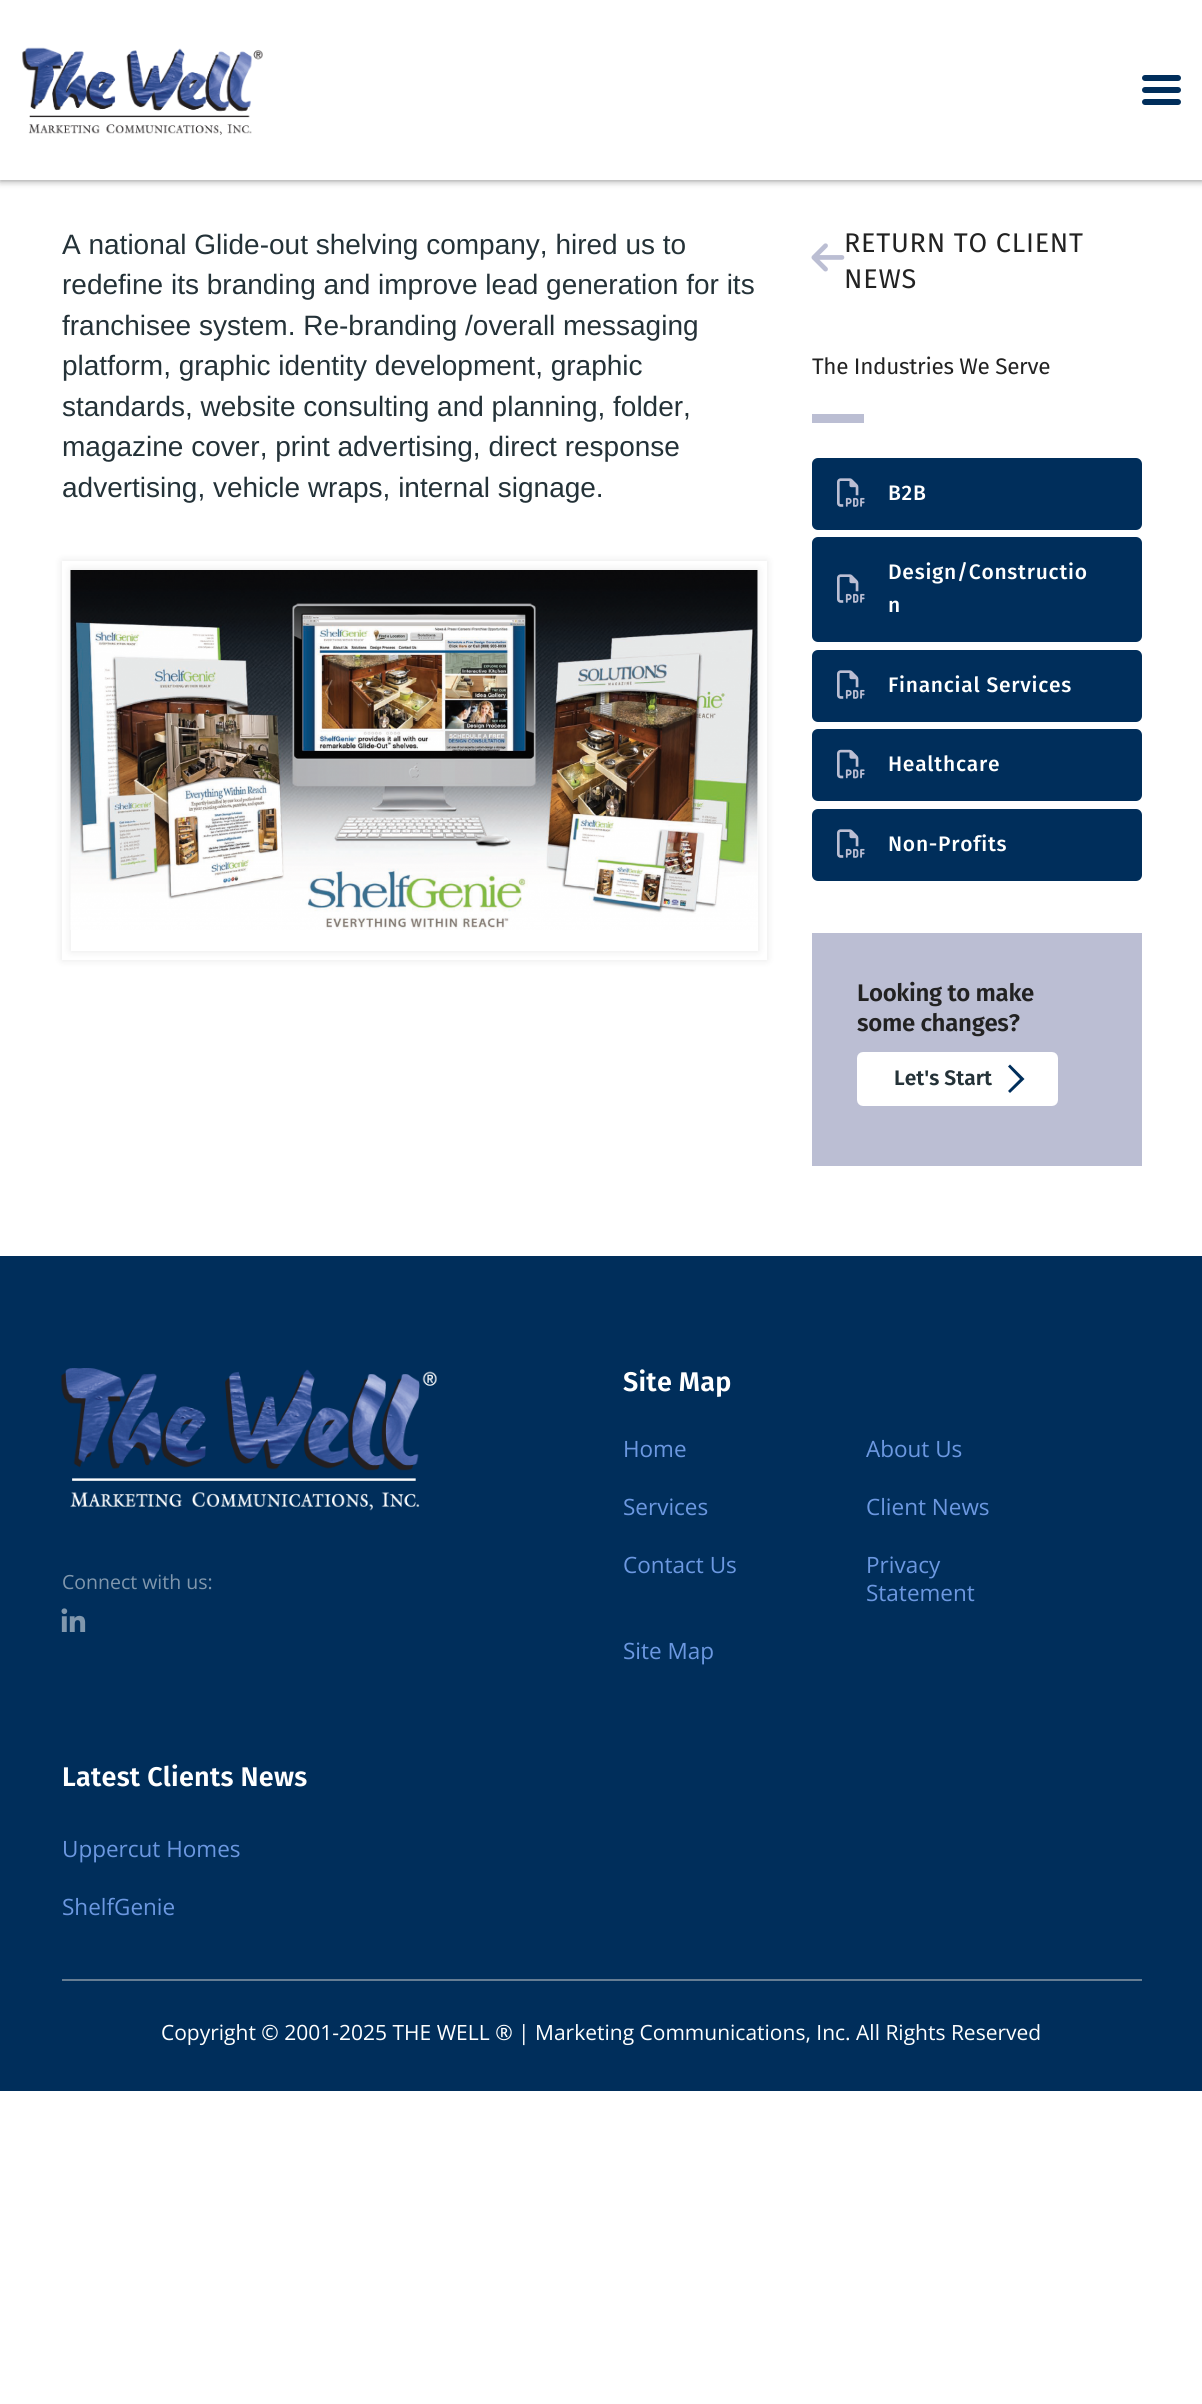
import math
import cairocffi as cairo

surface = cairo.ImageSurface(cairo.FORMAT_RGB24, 1202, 2404)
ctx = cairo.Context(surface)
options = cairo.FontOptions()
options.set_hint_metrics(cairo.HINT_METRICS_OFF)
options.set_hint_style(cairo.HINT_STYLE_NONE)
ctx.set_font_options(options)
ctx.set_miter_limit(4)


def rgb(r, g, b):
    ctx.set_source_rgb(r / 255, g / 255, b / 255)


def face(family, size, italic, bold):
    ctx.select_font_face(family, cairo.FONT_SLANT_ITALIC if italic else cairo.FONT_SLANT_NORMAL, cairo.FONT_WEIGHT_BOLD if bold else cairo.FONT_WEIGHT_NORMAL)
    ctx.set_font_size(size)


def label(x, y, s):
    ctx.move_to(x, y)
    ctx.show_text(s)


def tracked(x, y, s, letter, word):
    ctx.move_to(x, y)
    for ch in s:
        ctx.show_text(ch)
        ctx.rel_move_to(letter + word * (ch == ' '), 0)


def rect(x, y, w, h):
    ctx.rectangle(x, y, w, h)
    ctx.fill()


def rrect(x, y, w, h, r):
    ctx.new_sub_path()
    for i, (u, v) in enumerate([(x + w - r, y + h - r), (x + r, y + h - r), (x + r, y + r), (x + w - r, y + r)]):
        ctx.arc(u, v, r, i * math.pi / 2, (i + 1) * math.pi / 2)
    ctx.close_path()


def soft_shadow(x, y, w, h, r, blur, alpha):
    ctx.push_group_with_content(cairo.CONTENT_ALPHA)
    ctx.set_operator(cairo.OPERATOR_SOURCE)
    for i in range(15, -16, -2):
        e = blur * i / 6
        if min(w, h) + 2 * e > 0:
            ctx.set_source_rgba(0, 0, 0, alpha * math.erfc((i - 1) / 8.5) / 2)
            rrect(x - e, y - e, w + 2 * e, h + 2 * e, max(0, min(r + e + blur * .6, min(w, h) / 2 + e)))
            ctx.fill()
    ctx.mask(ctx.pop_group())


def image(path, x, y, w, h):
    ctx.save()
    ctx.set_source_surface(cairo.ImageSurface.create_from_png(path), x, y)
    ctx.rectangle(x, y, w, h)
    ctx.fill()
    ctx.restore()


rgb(255, 255, 255)
ctx.paint()
rgb(0, 0, 0)
soft_shadow(0, 0, 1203, 180, 0, 4, 0.52)
rgb(255, 255, 255)
rect(0, 0, 1202, 180)
image('image0.png', 22, 47, 241, 88)
rgb(0, 46, 91)
rrect(1142, 87, 39, 6, 3)
ctx.fill()
rrect(1142, 75, 39, 6, 3)
ctx.fill()
rrect(1142, 99, 39, 6, 3)
ctx.fill()
face('Liberation Sans', 28, 0, 0)
rgb(36, 50, 56)
label(62, 254, 'A national Glide-out shelving company, hired us to')
label(62, 294, 'redefine its branding and improve lead generation for its')
label(62, 335, 'franchisee system. Re-branding /overall messaging')
label(62, 375, 'platform, graphic identity development, graphic')
label(62, 416, 'standards, website consulting and planning, folder,')
label(62, 456, 'magazine cover, print advertising, direct response')
label(62, 497, 'advertising, vehicle wraps, internal signage.')
ctx.save()
ctx.set_fill_rule(cairo.FILL_RULE_EVEN_ODD)
ctx.new_path()
ctx.move_to(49, 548)
ctx.line_to(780, 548)
ctx.line_to(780, 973)
ctx.line_to(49, 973)
ctx.close_path()
ctx.move_to(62, 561)
ctx.line_to(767, 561)
ctx.line_to(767, 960)
ctx.line_to(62, 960)
ctx.close_path()
ctx.clip()
rgb(0, 0, 0)
soft_shadow(62, 561, 705, 399, 0, 4, 0.1)
ctx.restore()
ctx.save()
ctx.set_fill_rule(cairo.FILL_RULE_EVEN_ODD)
ctx.new_path()
ctx.move_to(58, 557)
ctx.line_to(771, 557)
ctx.line_to(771, 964)
ctx.line_to(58, 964)
ctx.close_path()
ctx.move_to(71, 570)
ctx.line_to(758, 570)
ctx.line_to(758, 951)
ctx.line_to(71, 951)
ctx.close_path()
ctx.clip()
rgb(0, 0, 0)
soft_shadow(71, 570, 687, 381, 0, 4, 0.1)
ctx.restore()
image('image1.png', 70, 570, 688, 360)
image('image2.png', 811, 243, 34, 29)
face('Fira Sans', 27, 0, 0)
rgb(34, 34, 34)
tracked(844, 252, 'RETURN TO CLIENT', 0.75, 0)
tracked(844, 288, 'NEWS', 0.75, 0)
face('Fira Sans', 22.5, 0, 0)
tracked(812, 374, 'The Industries We Serve', -0.3, 0)
rgb(187, 190, 211)
rect(812, 414, 52, 9)
rgb(0, 46, 91)
rrect(813, 459, 328, 70, 5)
ctx.fill_preserve()
ctx.stroke()
image('image3.png', 837, 478, 28, 29)
face('Fira Sans Medium', 21, 0, 0)
rgb(255, 255, 255)
tracked(888, 500, 'B2B', 0.75, 0)
rgb(0, 46, 91)
rrect(813, 538, 328, 103, 5)
ctx.fill_preserve()
ctx.stroke()
image('image3.png', 837, 574, 28, 29)
rgb(255, 255, 255)
tracked(888, 579, 'Design/Constructio', 0.75, 0)
tracked(888, 612, 'n', 0.75, 0)
rgb(0, 46, 91)
rrect(813, 651, 328, 70, 5)
ctx.fill_preserve()
ctx.stroke()
image('image3.png', 837, 670, 28, 29)
rgb(255, 255, 255)
tracked(888, 692, 'Financial Services', 0.75, 0)
rgb(0, 46, 91)
rrect(813, 730, 328, 70, 5)
ctx.fill_preserve()
ctx.stroke()
image('image4.png', 837, 749, 28, 30)
rgb(255, 255, 255)
tracked(888, 771, 'Healthcare', 0.75, 0)
rgb(0, 46, 91)
rrect(813, 810, 328, 70, 5)
ctx.fill_preserve()
ctx.stroke()
image('image3.png', 837, 829, 28, 29)
rgb(255, 255, 255)
tracked(888, 851, 'Non-Profits', 0.75, 0)
rgb(187, 190, 211)
rect(812, 933, 330, 233)
face('Fira Sans SemiBold', 24, 0, 0)
rgb(34, 34, 34)
tracked(857, 1001, 'Looking to make', -0.3, 0)
tracked(857, 1031, 'some changes?', -0.3, 0)
rgb(255, 255, 255)
rrect(859.5, 1054.5, 196, 49, 3.5)
ctx.fill_preserve()
ctx.set_line_width(5)
ctx.stroke()
face('Fira Sans SemiBold', 21, 0, 0)
rgb(36, 50, 56)
label(894, 1085, 'Let\'s Start')
rgb(0, 46, 91)
ctx.new_path()
ctx.move_to(1024.5, 1079)
ctx.line_to(1010, 1064.5)
ctx.line_to(1008, 1066.5)
ctx.line_to(1020, 1079)
ctx.line_to(1008, 1091)
ctx.line_to(1010, 1093)
ctx.close_path()
ctx.fill()
rect(0, 1256, 1202, 835)
image('image5.png', 61, 1368, 376, 143)
face('Open Sans', 19.5, 0, 0)
rgb(128, 151, 173)
label(62, 1589, 'Connect with us:')
image('image6.png', 61, 1608, 25, 24)
face('Fira Sans SemiBold', 27, 0, 0)
rgb(255, 255, 255)
tracked(623, 1391, 'Site Map', 0.25, 0)
face('Open Sans', 22.5, 0, 0)
rgb(108, 152, 225)
label(623, 1457, 'Home')
label(866, 1457, 'About Us')
label(623, 1515, 'Services')
label(866, 1515, 'Client News')
label(623, 1573, 'Contact Us')
label(866, 1573, 'Privacy')
label(866, 1601, 'Statement')
label(623, 1659, 'Site Map')
face('Fira Sans SemiBold', 27, 0, 0)
rgb(255, 255, 255)
tracked(62, 1786, 'Latest Clients News', 0.25, 0)
face('Open Sans', 22.5, 0, 0)
rgb(108, 152, 225)
label(62, 1857, 'Uppercut Homes')
label(62, 1915, 'ShelfGenie')
rgb(102, 125, 147)
rect(62, 1979, 1080, 2)
face('Open Sans', 21, 0, 0)
rgb(255, 255, 255)
label(161, 2040, 'Copyright © 2001-2025 THE WELL ® | Marketing Communications, Inc. All Rights Reserved')
surface.write_to_png('render.png')
